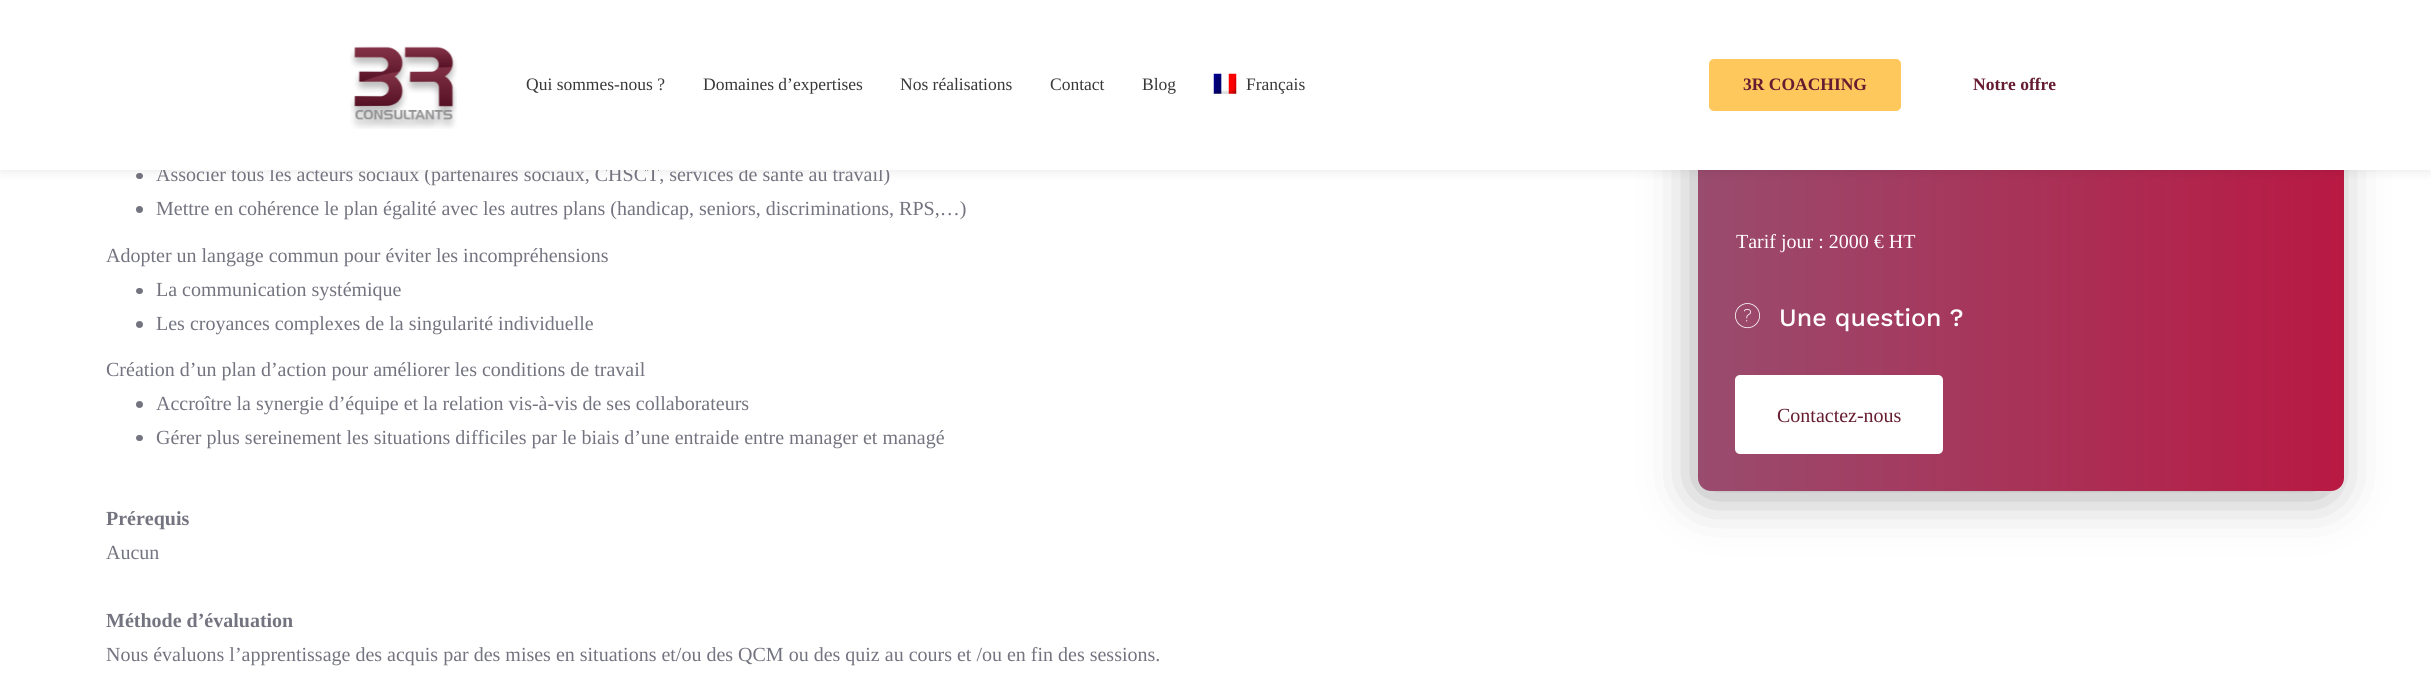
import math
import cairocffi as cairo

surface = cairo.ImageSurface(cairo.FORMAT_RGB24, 2431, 680)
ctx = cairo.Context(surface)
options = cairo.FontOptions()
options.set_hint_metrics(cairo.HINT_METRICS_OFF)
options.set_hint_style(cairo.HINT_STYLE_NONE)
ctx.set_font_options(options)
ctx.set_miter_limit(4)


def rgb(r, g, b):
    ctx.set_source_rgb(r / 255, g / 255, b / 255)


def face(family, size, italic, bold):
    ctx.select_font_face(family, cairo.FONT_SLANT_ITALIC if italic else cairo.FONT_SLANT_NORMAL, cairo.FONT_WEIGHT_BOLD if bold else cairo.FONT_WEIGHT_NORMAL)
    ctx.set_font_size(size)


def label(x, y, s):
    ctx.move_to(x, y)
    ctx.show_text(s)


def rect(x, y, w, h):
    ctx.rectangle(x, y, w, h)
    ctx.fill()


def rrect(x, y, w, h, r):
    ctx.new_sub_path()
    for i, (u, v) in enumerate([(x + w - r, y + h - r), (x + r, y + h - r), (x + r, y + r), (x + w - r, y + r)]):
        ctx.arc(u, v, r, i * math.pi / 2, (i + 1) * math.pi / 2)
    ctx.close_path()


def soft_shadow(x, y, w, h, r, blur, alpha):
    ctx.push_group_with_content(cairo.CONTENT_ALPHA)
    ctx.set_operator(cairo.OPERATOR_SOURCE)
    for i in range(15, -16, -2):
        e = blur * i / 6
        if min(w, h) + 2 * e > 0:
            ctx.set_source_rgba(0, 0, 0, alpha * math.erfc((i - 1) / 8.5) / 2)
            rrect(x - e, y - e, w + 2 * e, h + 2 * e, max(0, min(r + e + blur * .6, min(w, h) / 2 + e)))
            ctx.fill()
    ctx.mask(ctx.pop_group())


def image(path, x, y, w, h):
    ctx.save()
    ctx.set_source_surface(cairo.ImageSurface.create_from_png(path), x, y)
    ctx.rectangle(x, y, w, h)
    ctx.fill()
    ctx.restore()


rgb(255, 255, 255)
ctx.paint()
rgb(115, 116, 127)
rrect(136, 173, 7, 6, 3)
ctx.fill()
rgb(97, 97, 97)
soft_shadow(1703, -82, 623, 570, 1, 27, 0.69)
gradient = cairo.LinearGradient(1698, 89, 2344, 89)
gradient.add_color_stop_rgba(0, 0.6, 0.298, 0.431, 1)
gradient.add_color_stop_rgba(1, 0.722, 0.098, 0.263, 1)
ctx.set_source(gradient)
rrect(1698, -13, 646, 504, 13)
ctx.fill()
rgb(0, 0, 0)
soft_shadow(0, 3, 2431, 170, 0, 5, 0.07)
face('Liberation Serif', 20, 0, 0)
rgb(115, 116, 127)
label(156, 181, 'Associer tous les acteurs sociaux (partenaires sociaux, CHSCT, services de santé au travail)')
rgb(255, 255, 255)
rect(0, 0, 2431, 170)
image('image0.png', 350, 46, 107, 83)
face('Liberation Serif', 17.5, 0, 0)
rgb(56, 56, 56)
label(526, 90, 'Qui sommes-nous ?')
label(703, 90, 'Domaines d’expertises')
label(900, 90, 'Nos réalisations')
label(1050, 90, 'Contact')
label(1142, 90, 'Blog')
image('image1.png', 1213, 73, 24, 21)
label(1246, 90, 'Français')
rgb(255, 200, 93)
rrect(1709, 59, 192, 52, 5)
ctx.fill()
face('Liberation Serif', 17.5, 0, 1)
rgb(102, 28, 48)
label(1743, 90, '3R COACHING')
label(1973, 90, 'Notre offre')
rgb(115, 116, 127)
ctx.new_path()
ctx.arc(139.5, 209.5, 3.5, 0, 2 * math.pi)
ctx.fill()
face('Liberation Serif', 20, 0, 0)
label(156, 215, 'Mettre en cohérence le plan égalité avec les autres plans (handicap, seniors, discriminations, RPS,…)')
label(106, 262, 'Adopter un langage commun pour éviter les incompréhensions')
rrect(136, 288, 7, 6, 3)
ctx.fill()
label(156, 296, 'La communication systémique')
ctx.new_path()
ctx.arc(139.5, 324.5, 3.5, 0, 2 * math.pi)
ctx.fill()
label(156, 330, 'Les croyances complexes de la singularité individuelle')
label(106, 376, 'Création d’un plan d’action pour améliorer les conditions de travail')
ctx.new_path()
ctx.arc(139.5, 404.5, 3.5, 0, 2 * math.pi)
ctx.fill()
label(156, 410, 'Accroître la synergie d’équipe et la relation vis-à-vis de ses collaborateurs')
rrect(136, 435, 7, 6, 3)
ctx.fill()
label(156, 444, 'Gérer plus sereinement les situations difficiles par le biais d’une entraide entre manager et managé')
face('Liberation Serif', 20, 0, 1)
label(106, 525, 'Prérequis')
face('Liberation Serif', 20, 0, 0)
label(106, 559, 'Aucun')
face('Liberation Serif', 20, 0, 1)
label(106, 627, 'Méthode d’évaluation')
face('Liberation Serif', 20, 0, 0)
label(106, 661, 'Nous évaluons l’apprentissage des acquis par des mises en situations et/ou des QCM ou des quiz au cours et /ou en fin des sessions.')
rgb(255, 255, 255)
label(1736, 248, 'Tarif jour : 2000 € HT')
image('image2.png', 1735, 303, 25, 26)
face('Work Sans Medium', 25, 0, 0)
label(1779, 326, 'Une question ?')
rrect(1735, 375, 208, 79, 5)
ctx.fill()
face('Liberation Serif', 20, 0, 0)
rgb(102, 28, 48)
label(1777, 422, 'Contactez-nous')
surface.write_to_png('render.png')
